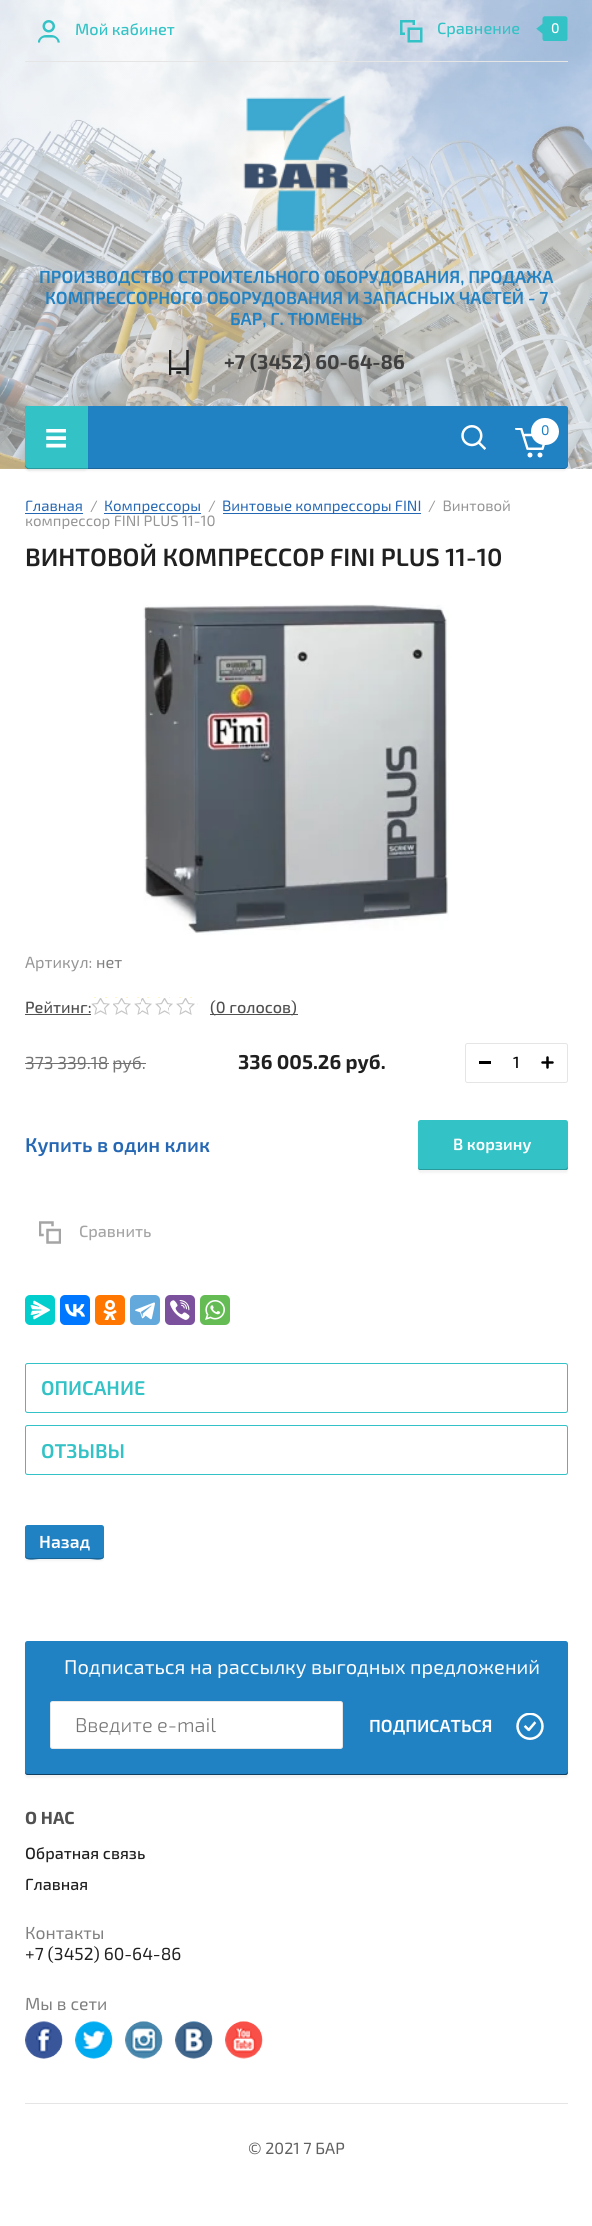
import math
import cairocffi as cairo

surface = cairo.ImageSurface(cairo.FORMAT_RGB24, 592, 2226)
ctx = cairo.Context(surface)
options = cairo.FontOptions()
options.set_hint_metrics(cairo.HINT_METRICS_OFF)
options.set_hint_style(cairo.HINT_STYLE_NONE)
ctx.set_font_options(options)
ctx.set_miter_limit(4)


def rgb(r, g, b):
    ctx.set_source_rgb(r / 255, g / 255, b / 255)


def face(family, size, italic, bold):
    ctx.select_font_face(family, cairo.FONT_SLANT_ITALIC if italic else cairo.FONT_SLANT_NORMAL, cairo.FONT_WEIGHT_BOLD if bold else cairo.FONT_WEIGHT_NORMAL)
    ctx.set_font_size(size)


def label(x, y, s):
    ctx.move_to(x, y)
    ctx.show_text(s)


def rect(x, y, w, h):
    ctx.rectangle(x, y, w, h)
    ctx.fill()


def rrect(x, y, w, h, r):
    ctx.new_sub_path()
    for i, (u, v) in enumerate([(x + w - r, y + h - r), (x + r, y + h - r), (x + r, y + r), (x + w - r, y + r)]):
        ctx.arc(u, v, r, i * math.pi / 2, (i + 1) * math.pi / 2)
    ctx.close_path()


def soft_shadow(x, y, w, h, r, blur, alpha):
    ctx.push_group_with_content(cairo.CONTENT_ALPHA)
    ctx.set_operator(cairo.OPERATOR_SOURCE)
    for i in range(15, -16, -2):
        e = blur * i / 6
        if min(w, h) + 2 * e > 0:
            ctx.set_source_rgba(0, 0, 0, alpha * math.erfc((i - 1) / 8.5) / 2)
            rrect(x - e, y - e, w + 2 * e, h + 2 * e, max(0, min(r + e + blur * .6, min(w, h) / 2 + e)))
            ctx.fill()
    ctx.mask(ctx.pop_group())


def image(path, x, y, w, h):
    ctx.save()
    ctx.set_source_surface(cairo.ImageSurface.create_from_png(path), x, y)
    ctx.rectangle(x, y, w, h)
    ctx.fill()
    ctx.restore()


rgb(255, 255, 255)
ctx.paint()
image('image0.png', 0, 0, 592, 469)
rgb(229, 229, 229)
rect(25, 61, 543, 1)
image('image1.png', 38, 20, 22, 23)
face('Exo 2 Medium', 16.25, 0, 0)
rgb(51, 194, 197)
label(75, 35, 'Мой кабинет')
image('image2.png', 400, 20, 23, 23)
label(437, 34, 'Сравнение')
image('image3.png', 536, 16, 32, 25)
face('Exo 2 Medium', 14, 0, 0)
rgb(255, 255, 255)
label(551, 33, '0')
image('image4.png', 243, 95, 105, 137)
face('Exo 2 SemiBold', 17.5, 0, 0)
rgb(32, 129, 195)
label(39, 283, 'ПРОИЗВОДСТВО СТРОИТЕЛЬНОГО ОБОРУДОВАНИЯ, ПРОДАЖА')
label(45, 304, 'КОМПРЕССОРНОГО ОБОРУДОВАНИЯ И ЗАПАСНЫХ ЧАСТЕЙ - 7')
label(230, 325, 'БАР, Г. ТЮМЕНЬ')
image('image5.png', 169, 350, 20, 25)
face('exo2', 20, 0, 1)
rgb(64, 64, 64)
label(224, 369, '+7 (3452) 60-64-86')
rgb(0, 0, 0)
soft_shadow(25, 409, 543, 62, 4, 1, 0.05)
rgb(32, 129, 195)
ctx.new_path()
ctx.move_to(27.5, 406)
ctx.line_to(565.5, 406)
ctx.curve_to(567, 406, 568, 407, 568, 408.5)
ctx.line_to(568, 465)
ctx.curve_to(568, 467, 566, 469, 564, 469)
ctx.line_to(29, 469)
ctx.curve_to(27, 469, 25, 467, 25, 465)
ctx.line_to(25, 408.5)
ctx.curve_to(25, 407, 26, 406, 27.5, 406)
ctx.close_path()
ctx.fill()
ctx.set_source_rgba(0, 0, 0, 0.2)
ctx.new_path()
ctx.move_to(25, 464)
ctx.line_to(25, 465)
ctx.curve_to(25, 467, 27, 469, 29, 469)
ctx.line_to(564, 469)
ctx.curve_to(566, 469, 568, 467, 568, 465)
ctx.line_to(568, 464)
ctx.curve_to(568, 466, 566, 468, 564, 468)
ctx.line_to(29, 468)
ctx.curve_to(27, 468, 25, 466, 25, 464)
ctx.close_path()
ctx.fill()
rgb(0, 0, 0)
soft_shadow(25, 409, 63, 62, 4, 1, 0.05)
rgb(51, 194, 197)
ctx.new_path()
ctx.move_to(27.5, 406)
ctx.line_to(88, 406)
ctx.line_to(88, 469)
ctx.line_to(29, 469)
ctx.curve_to(27, 469, 25, 467, 25, 465)
ctx.line_to(25, 408.5)
ctx.curve_to(25, 407, 26, 406, 27.5, 406)
ctx.close_path()
ctx.fill()
image('image6.png', 46, 429, 20, 19)
ctx.set_source_rgba(0, 0, 0, 0.2)
ctx.new_path()
ctx.move_to(25, 464)
ctx.line_to(25, 465)
ctx.curve_to(25, 467, 27, 469, 29, 469)
ctx.line_to(88, 469)
ctx.line_to(88, 468)
ctx.line_to(29, 468)
ctx.curve_to(27, 468, 25, 466, 25, 464)
ctx.close_path()
ctx.fill()
image('image7.png', 461, 425, 25, 25)
image('image8.png', 515, 428, 31, 30)
rgb(255, 255, 255)
rrect(531, 418, 28, 27, 13.5)
ctx.fill()
face('exo2', 14, 0, 0)
rgb(32, 129, 195)
label(541, 435, '0')
face('exo2', 15, 0, 0)
rgb(37, 103, 179)
label(25, 511, 'Главная')
rect(25, 513, 58, 1)
rgb(149, 149, 149)
label(90, 511, '/')
rgb(37, 103, 179)
rect(104, 513, 97, 1)
label(104, 511, 'Компрессоры')
rgb(149, 149, 149)
label(208, 511, '/')
rgb(37, 103, 179)
rect(223, 513, 198, 1)
label(222, 511, 'Винтовые компрессоры FINI')
rgb(149, 149, 149)
label(428, 511, '/  Винтовой')
label(25, 526, 'компрессор FINI PLUS 11-10')
face('Exo 2 SemiBold', 25, 0, 0)
rgb(32, 32, 32)
label(25, 566, 'ВИНТОВОЙ КОМПРЕССОР FINI PLUS 11-10')
image('image9.png', 143, 604, 306, 331)
face('exo2', 16.25, 0, 0)
rgb(149, 149, 149)
label(25, 968, 'Артикул:')
rgb(128, 128, 128)
label(96, 968, 'нет')
face('Exo 2 Medium', 16.25, 0, 0)
rgb(80, 80, 80)
label(25, 1013, 'Рейтинг:')
rect(25, 1014, 66, 1)
image('image10.png', 91, 997, 107, 18)
rect(210, 1014, 88, 1)
label(210, 1013, '(0 голосов)')
face('exo2', 17.5, 0, 0)
rgb(117, 117, 117)
label(25, 1069, '373 339.18 руб.')
rgb(112, 112, 112)
rect(25, 1063, 84, 1)
rect(113, 1063, 33, 1)
face('exo2', 20, 0, 1)
rgb(32, 32, 32)
label(238, 1069, '336 005.26 руб.')
rrect(465.5, 1043.5, 102, 39, 2)
rgb(229, 229, 229)
ctx.set_line_width(1)
ctx.stroke()
rgb(0, 0, 0)
rect(479, 1061, 12, 3)
face('Exo 2 Medium', 16.25, 0, 0)
label(513, 1068, '1')
image('image11.png', 541, 1056, 13, 13)
face('Exo 2 SemiBold', 20, 0, 0)
rgb(37, 103, 179)
label(25, 1152, 'Купить в один клик')
rgb(0, 0, 0)
soft_shadow(418, 1123, 150, 50, 2.5, 1, 0.05)
rgb(51, 194, 197)
rrect(418, 1120, 150, 50, 2.5)
ctx.fill()
rgb(41, 154, 156)
ctx.new_path()
ctx.move_to(418, 1166)
ctx.curve_to(418, 1168, 418, 1170, 420, 1170)
ctx.line_to(566, 1170)
ctx.curve_to(568, 1170, 568, 1168, 568, 1166)
ctx.curve_to(568, 1168, 566, 1169, 565, 1169)
ctx.line_to(420, 1169)
ctx.curve_to(419, 1169, 418, 1168, 418, 1166)
ctx.close_path()
ctx.fill()
face('Exo 2 SemiBold', 16.25, 0, 0)
rgb(255, 255, 255)
label(453, 1150, 'В корзину')
image('image12.png', 39, 1221, 22, 23)
face('Exo 2 Medium', 16.25, 0, 0)
rgb(165, 165, 165)
label(79, 1237, 'Сравнить')
rgb(3, 206, 206)
rrect(25, 1295, 30, 30, 5)
ctx.fill()
image('image13.png', 30, 1300, 20, 20)
rgb(0, 119, 255)
rrect(60, 1295, 30, 30, 5)
ctx.fill()
image('image14.png', 65, 1304, 20, 13)
rgb(255, 119, 0)
rrect(95, 1295, 30, 30, 5)
ctx.fill()
image('image15.png', 103, 1300, 14, 20)
rgb(100, 169, 220)
rrect(130, 1295, 30, 30, 5)
ctx.fill()
image('image16.png', 135, 1302, 20, 18)
rgb(123, 81, 157)
rrect(165, 1295, 30, 30, 5)
ctx.fill()
image('image17.png', 170, 1300, 20, 20)
rgb(101, 188, 84)
rrect(200, 1295, 30, 30, 5)
ctx.fill()
image('image18.png', 205, 1300, 20, 20)
rrect(25.5, 1363.5, 542, 49, 2)
rgb(51, 194, 197)
ctx.stroke()
face('Exo 2 SemiBold', 20, 0, 0)
label(41, 1395, 'ОПИСАНИЕ')
rrect(25.5, 1425.5, 542, 49, 2)
ctx.stroke()
label(41, 1458, 'ОТЗЫВЫ')
rgb(0, 0, 0)
soft_shadow(25, 1528, 79, 33, 2.5, 1, 0.05)
rgb(32, 129, 195)
rrect(25, 1525, 79, 34, 2.5)
ctx.fill()
rgb(25, 100, 151)
ctx.new_path()
ctx.move_to(25, 1555)
ctx.curve_to(25, 1562, 34, 1559, 40, 1559)
ctx.line_to(89, 1559)
ctx.curve_to(95, 1559, 104, 1562, 104, 1555)
ctx.curve_to(104, 1556, 103, 1558, 101, 1558)
ctx.line_to(28, 1558)
ctx.curve_to(26, 1558, 25, 1556, 25, 1555)
ctx.close_path()
ctx.fill()
face('Exo 2 SemiBold', 17.5, 0, 0)
rgb(255, 255, 255)
label(39, 1548, 'Назад')
rgb(0, 0, 0)
soft_shadow(25, 1644, 543, 134, 2.5, 1, 0.05)
rgb(32, 129, 195)
rrect(25, 1641, 543, 134, 2.5)
ctx.fill()
ctx.set_source_rgba(0, 0, 0, 0.5)
ctx.new_path()
ctx.move_to(25, 1771)
ctx.line_to(25, 1772)
ctx.curve_to(25, 1774, 26, 1775, 28, 1775)
ctx.line_to(566, 1775)
ctx.curve_to(567, 1775, 568, 1774, 568, 1772)
ctx.line_to(568, 1771)
ctx.curve_to(568, 1773, 566, 1774, 565, 1774)
ctx.line_to(28, 1774)
ctx.curve_to(26, 1774, 25, 1773, 25, 1771)
ctx.close_path()
ctx.fill()
face('exo2', 20, 0, 0)
rgb(255, 255, 255)
label(64, 1674, 'Подписаться на рассылку выгодных предложений')
rrect(50, 1701, 293, 48, 2.5)
ctx.fill()
rrect(50.5, 1701.5, 292, 47, 2)
ctx.set_source_rgba(0, 0, 0, 0.1)
ctx.stroke()
face('Exo 2 Light', 20, 0, 0)
rgb(117, 117, 117)
label(75, 1732, 'Введите e-mail')
image('image19.png', 516, 1713, 28, 27)
face('Exo 2 SemiBold', 17.5, 0, 0)
rgb(255, 255, 255)
label(369, 1732, 'ПОДПИСАТЬСЯ')
face('exo2', 17.5, 0, 1)
rgb(80, 80, 80)
label(25, 1824, 'О НАС')
face('Exo 2 Medium', 16.25, 0, 0)
rgb(32, 32, 32)
label(25, 1859, 'Обратная связь')
label(25, 1890, 'Главная')
face('exo2', 17.5, 0, 0)
rgb(128, 128, 128)
label(25, 1939, 'Контакты')
rgb(32, 32, 32)
label(25, 1960, '+7 (3452) 60-64-86')
rgb(128, 128, 128)
label(25, 2010, 'Мы в сети')
image('image20.png', 25, 2021, 38, 38)
image('image21.png', 75, 2021, 38, 38)
image('image22.png', 125, 2021, 38, 38)
image('image23.png', 175, 2021, 38, 38)
image('image24.png', 225, 2021, 38, 38)
rgb(229, 229, 229)
rect(25, 2103, 543, 1)
face('exo2', 16.25, 0, 0)
rgb(96, 96, 96)
label(248, 2154, '© 2021 7 БАР')
surface.write_to_png('render.png')
